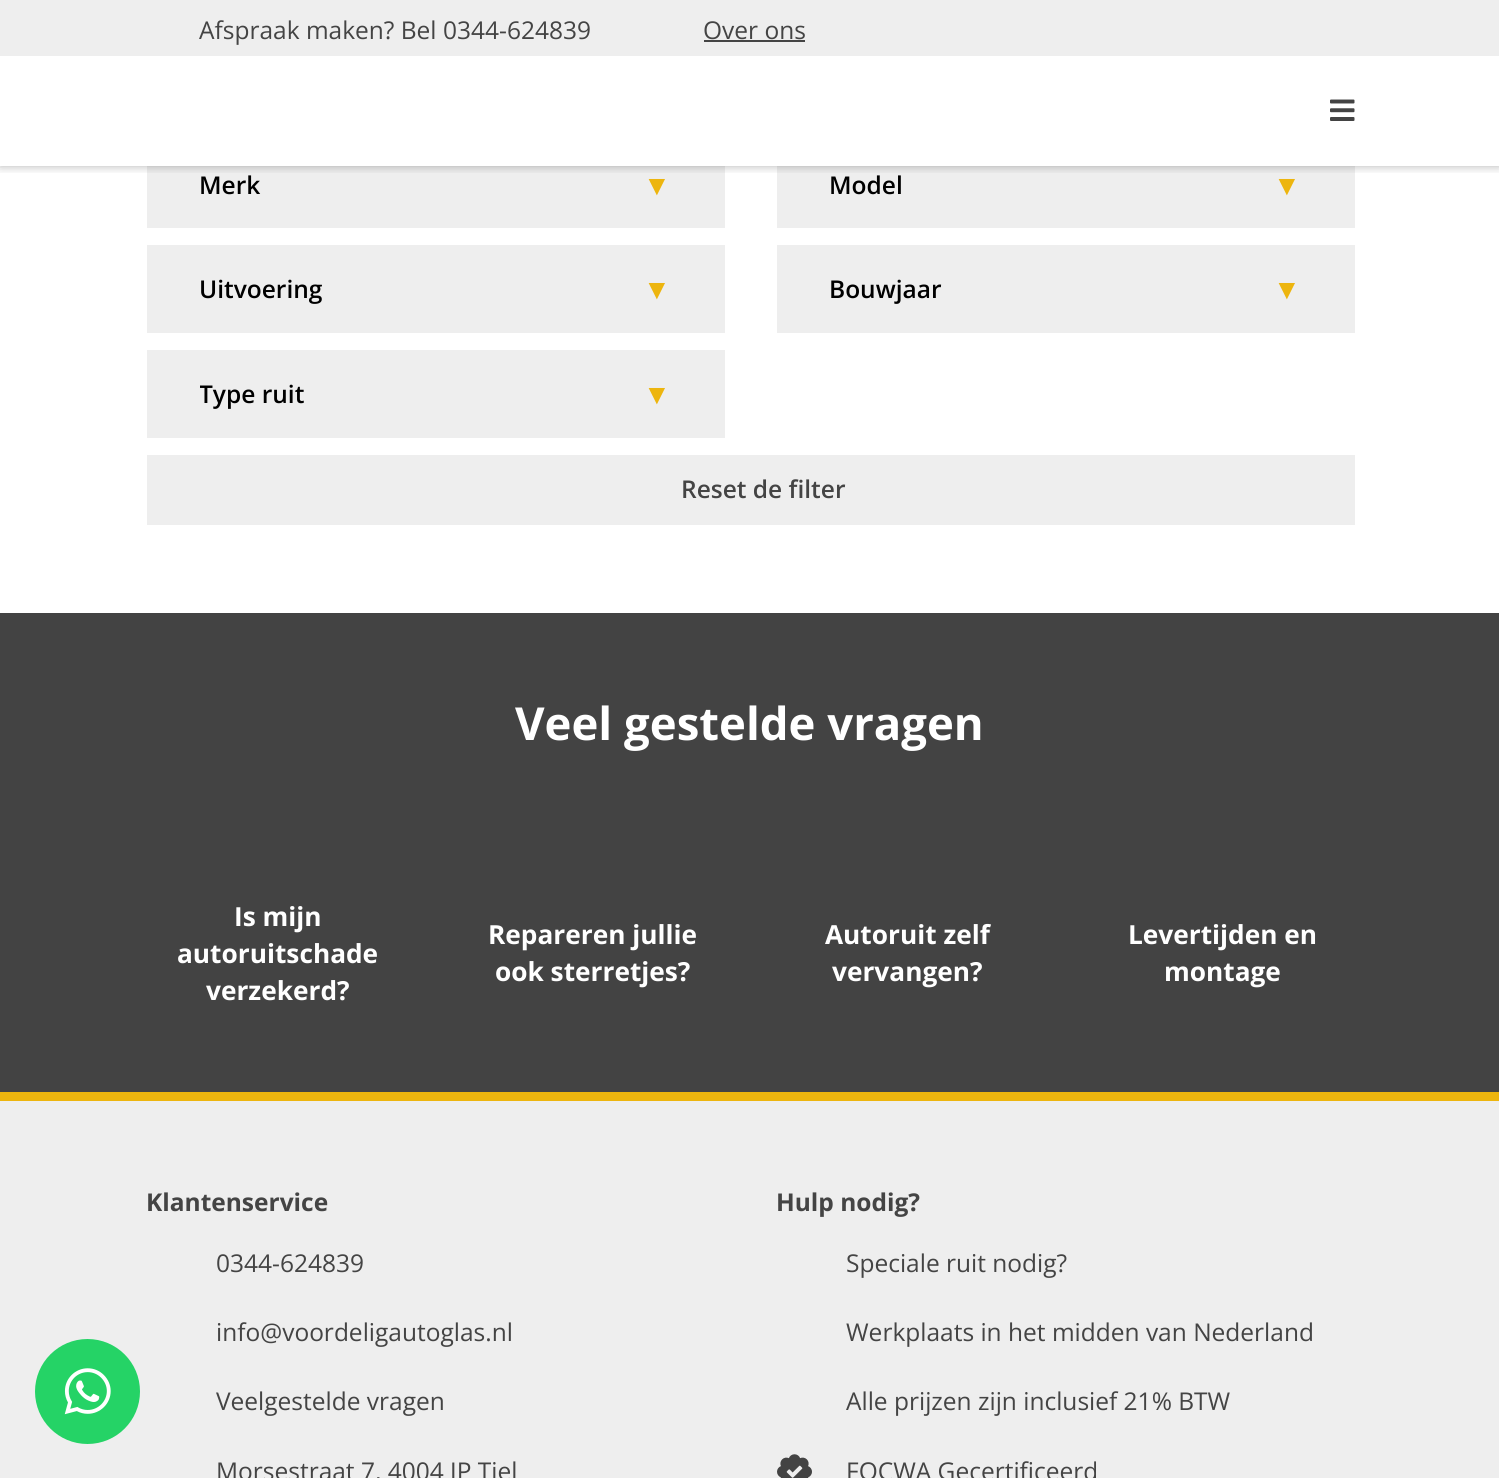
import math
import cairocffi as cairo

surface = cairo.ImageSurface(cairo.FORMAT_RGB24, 1499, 1478)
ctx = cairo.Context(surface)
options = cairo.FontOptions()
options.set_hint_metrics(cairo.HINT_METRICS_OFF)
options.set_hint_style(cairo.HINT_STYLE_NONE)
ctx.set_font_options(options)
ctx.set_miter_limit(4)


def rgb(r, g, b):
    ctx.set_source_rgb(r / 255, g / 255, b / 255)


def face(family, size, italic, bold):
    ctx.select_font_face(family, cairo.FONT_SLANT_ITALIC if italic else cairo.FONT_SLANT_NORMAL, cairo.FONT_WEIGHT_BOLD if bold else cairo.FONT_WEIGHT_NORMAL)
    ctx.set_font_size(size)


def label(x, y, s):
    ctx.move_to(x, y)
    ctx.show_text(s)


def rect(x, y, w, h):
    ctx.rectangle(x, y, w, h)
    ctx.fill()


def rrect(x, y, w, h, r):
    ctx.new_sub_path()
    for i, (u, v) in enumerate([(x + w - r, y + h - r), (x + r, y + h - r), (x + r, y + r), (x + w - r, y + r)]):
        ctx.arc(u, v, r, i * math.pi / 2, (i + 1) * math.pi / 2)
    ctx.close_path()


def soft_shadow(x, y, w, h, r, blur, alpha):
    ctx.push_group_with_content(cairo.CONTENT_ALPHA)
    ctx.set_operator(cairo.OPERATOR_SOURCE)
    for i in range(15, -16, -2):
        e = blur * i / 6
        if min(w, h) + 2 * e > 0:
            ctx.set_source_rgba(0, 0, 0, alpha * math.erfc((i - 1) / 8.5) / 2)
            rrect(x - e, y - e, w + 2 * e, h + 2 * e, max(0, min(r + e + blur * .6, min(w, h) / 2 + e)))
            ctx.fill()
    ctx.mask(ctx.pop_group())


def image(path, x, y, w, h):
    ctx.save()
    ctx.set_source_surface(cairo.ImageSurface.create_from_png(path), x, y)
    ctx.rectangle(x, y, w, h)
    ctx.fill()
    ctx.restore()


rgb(255, 255, 255)
ctx.paint()
rgb(238, 238, 238)
rect(0, 0, 1499, 56)
rect(147, 166, 578, 62)
rect(777, 166, 578, 62)
ctx.save()
ctx.rectangle(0, 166, 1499, 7)
ctx.clip()
rgb(0, 0, 0)
soft_shadow(0, 0, 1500, 166, 0, 5, 0.3)
ctx.restore()
face('Open Sans', 24.5, 0, 0)
rgb(68, 68, 68)
label(199, 39, 'Afspraak maken? Bel')
label(443, 39, '0344-624839')
label(703, 39, 'Over ons')
rect(704, 40, 101, 2)
image('image0.png', 1330, 99, 25, 22)
face('Open Sans SemiBold', 24.5, 0, 0)
rgb(0, 0, 0)
label(199, 194, 'Merk')
face('Liberation Sans', 28, 0, 0)
rgb(237, 181, 14)
label(643, 195, '▼')
face('Open Sans SemiBold', 24.5, 0, 0)
rgb(0, 0, 0)
label(829, 194, 'Model')
face('Liberation Sans', 28, 0, 0)
rgb(237, 181, 14)
label(1273, 195, '▼')
rgb(238, 238, 238)
rect(147, 245, 578, 88)
face('Open Sans SemiBold', 24.5, 0, 0)
rgb(0, 0, 0)
label(199, 298, 'Uitvoering')
face('Liberation Sans', 28, 0, 0)
rgb(237, 181, 14)
label(643, 299, '▼')
rgb(238, 238, 238)
rect(777, 245, 578, 88)
face('Open Sans SemiBold', 24.5, 0, 0)
rgb(0, 0, 0)
label(829, 298, 'Bouwjaar')
face('Liberation Sans', 28, 0, 0)
rgb(237, 181, 14)
label(1273, 299, '▼')
rgb(238, 238, 238)
rect(147, 350, 578, 88)
ctx.save()
ctx.rectangle(200, 376, 472, 35)
ctx.clip()
face('Open Sans SemiBold', 24.5, 0, 0)
rgb(0, 0, 0)
label(199, 403, 'Type ruit')
ctx.restore()
rgb(237, 181, 14)
label(643, 404, '▼')
rgb(238, 238, 238)
rect(147, 455, 1208, 70)
face('Open Sans SemiBold', 24.5, 0, 0)
rgb(68, 68, 68)
label(681, 498, 'Reset de filter')
rgb(67, 67, 67)
rect(0, 613, 1499, 479)
rgb(237, 181, 14)
rect(0, 1092, 1499, 9)
face('Open Sans', 45.5, 0, 1)
rgb(255, 255, 255)
label(515, 740, 'Veel gestelde vragen')
face('Open Sans', 26.25, 0, 1)
label(234, 926, 'Is mijn')
label(177, 963, 'autoruitschade')
label(206, 1000, 'verzekerd?')
label(488, 944, 'Repareren jullie')
label(495, 981, 'ook sterretjes?')
label(825, 944, 'Autoruit zelf')
label(832, 981, 'vervangen?')
label(1128, 944, 'Levertijden en')
label(1164, 981, 'montage')
rgb(238, 238, 238)
rect(0, 1101, 1499, 377)
rgb(37, 211, 102)
ctx.new_path()
ctx.arc(87.5, 1391.5, 52.5, 0, 2 * math.pi)
ctx.fill()
image('image1.png', 64, 1368, 47, 47)
face('Open Sans', 24.5, 0, 1)
rgb(68, 68, 68)
label(146, 1211, 'Klantenservice')
face('Open Sans', 24.5, 0, 0)
label(216, 1272, '0344-624839')
label(216, 1341, 'info@voordeligautoglas.nl')
label(216, 1410, 'Veelgestelde vragen')
label(216, 1480, 'Morsestraat 7, 4004 JP Tiel')
face('Open Sans', 24.5, 0, 1)
label(776, 1211, 'Hulp nodig?')
face('Open Sans', 24.5, 0, 0)
label(846, 1272, 'Speciale ruit nodig?')
label(846, 1341, 'Werkplaats in het midden van Nederland')
label(846, 1410, 'Alle prijzen zijn inclusief 21% BTW')
image('image2.png', 777, 1454, 35, 24)
label(846, 1480, 'FOCWA Gecertificeerd')
surface.write_to_png('render.png')
